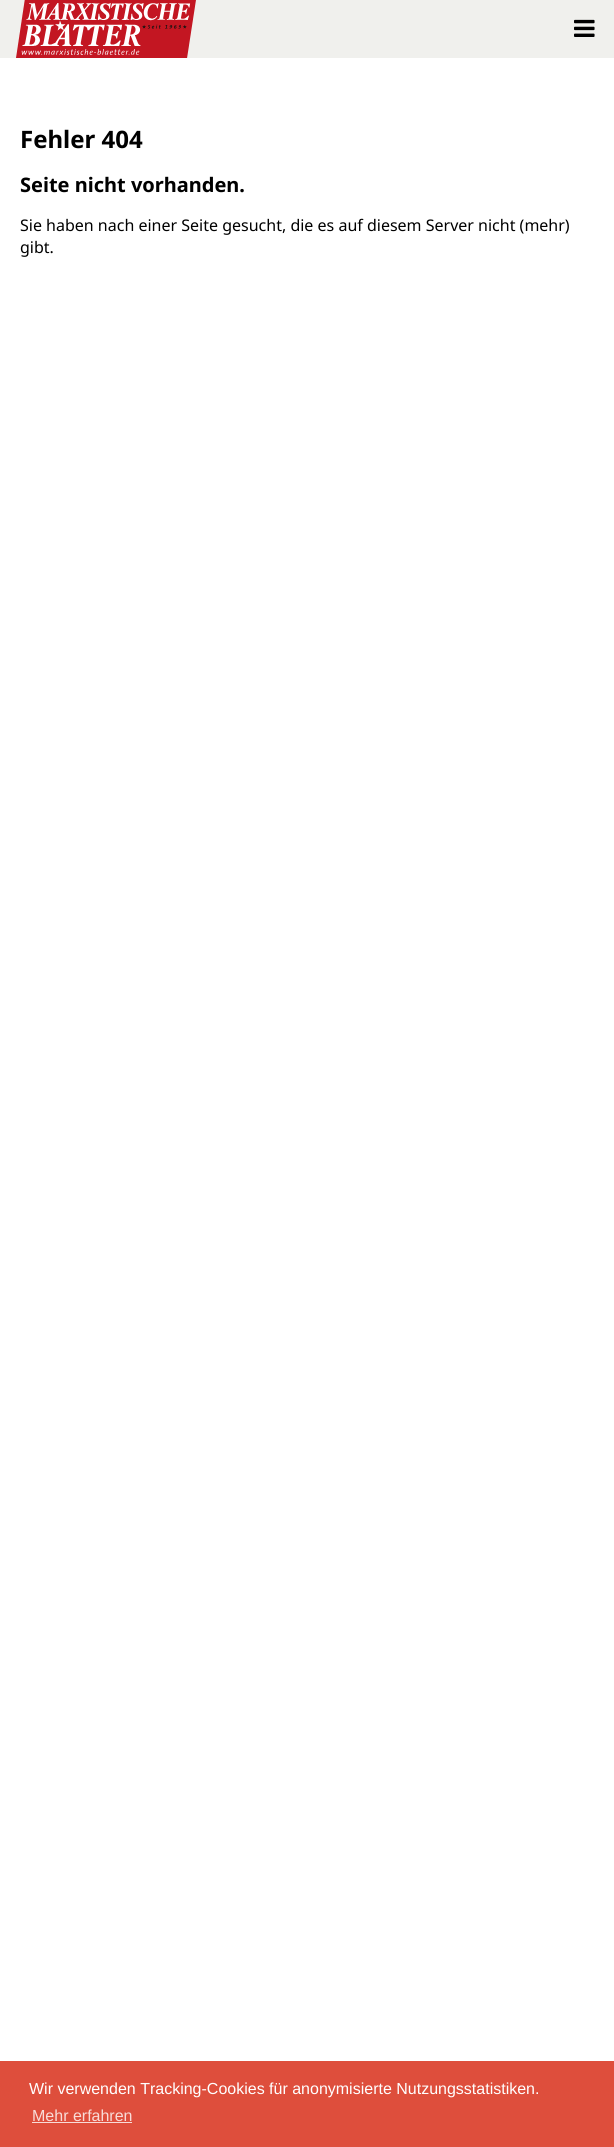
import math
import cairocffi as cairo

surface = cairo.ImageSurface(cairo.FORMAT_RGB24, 614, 2147)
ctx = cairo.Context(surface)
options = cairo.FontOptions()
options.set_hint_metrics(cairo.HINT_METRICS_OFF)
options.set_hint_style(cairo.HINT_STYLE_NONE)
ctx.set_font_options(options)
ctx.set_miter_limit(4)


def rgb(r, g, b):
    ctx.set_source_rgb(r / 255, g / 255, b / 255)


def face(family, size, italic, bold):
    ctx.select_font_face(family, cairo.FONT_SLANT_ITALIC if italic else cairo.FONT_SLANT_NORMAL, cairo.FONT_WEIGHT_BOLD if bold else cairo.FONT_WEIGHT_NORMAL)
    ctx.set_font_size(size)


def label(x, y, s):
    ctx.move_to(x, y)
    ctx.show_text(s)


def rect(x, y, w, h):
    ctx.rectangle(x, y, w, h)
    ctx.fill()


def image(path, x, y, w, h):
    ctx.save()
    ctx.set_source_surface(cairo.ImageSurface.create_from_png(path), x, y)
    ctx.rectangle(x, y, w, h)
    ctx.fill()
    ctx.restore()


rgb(255, 255, 255)
ctx.paint()
rgb(240, 240, 237)
rect(0, 0, 614, 58)
image('image0.png', 16, 0, 180, 58)
image('image1.png', 574, 19, 21, 18)
face('Noto Sans', 24, 0, 1)
rgb(0, 0, 0)
label(20, 148, 'Fehler 404')
face('Noto Sans', 20, 0, 1)
label(20, 192, 'Seite nicht vorhanden.')
face('Noto Sans', 16, 0, 0)
label(20, 231, 'Sie haben nach einer Seite gesucht, die es auf diesem Server nicht (mehr)')
label(20, 253, 'gibt.')
rgb(222, 78, 60)
rect(0, 2061, 614, 86)
face('Liberation Sans', 16, 0, 0)
rgb(255, 255, 255)
label(29, 2094, 'Wir verwenden Tracking-Cookies für anonymisierte Nutzungsstatistiken.')
rgb(248, 220, 216)
label(32, 2121, 'Mehr erfahren')
rect(32, 2122, 100, 1)
surface.write_to_png('render.png')
